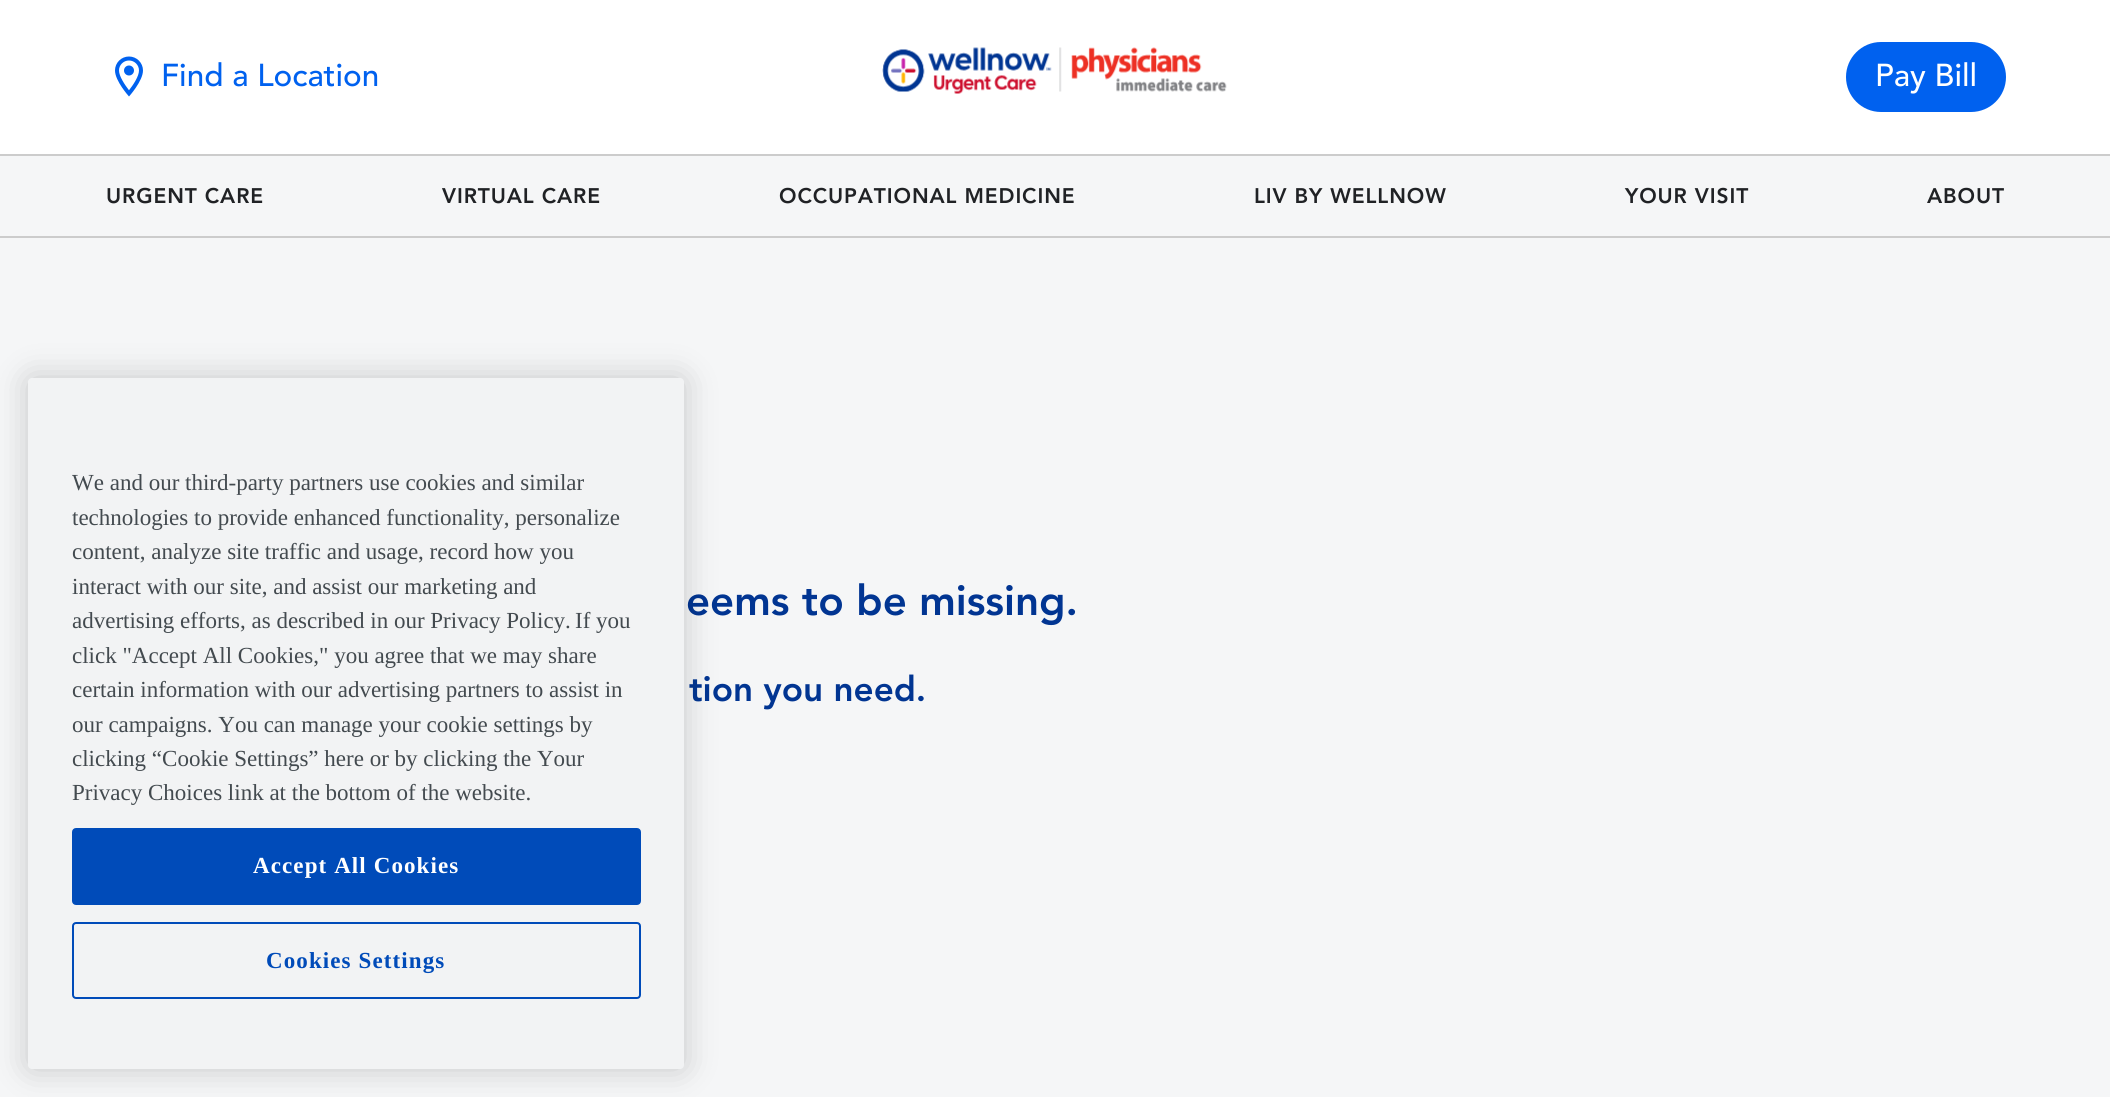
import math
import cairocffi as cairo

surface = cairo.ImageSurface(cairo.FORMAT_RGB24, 2110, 1097)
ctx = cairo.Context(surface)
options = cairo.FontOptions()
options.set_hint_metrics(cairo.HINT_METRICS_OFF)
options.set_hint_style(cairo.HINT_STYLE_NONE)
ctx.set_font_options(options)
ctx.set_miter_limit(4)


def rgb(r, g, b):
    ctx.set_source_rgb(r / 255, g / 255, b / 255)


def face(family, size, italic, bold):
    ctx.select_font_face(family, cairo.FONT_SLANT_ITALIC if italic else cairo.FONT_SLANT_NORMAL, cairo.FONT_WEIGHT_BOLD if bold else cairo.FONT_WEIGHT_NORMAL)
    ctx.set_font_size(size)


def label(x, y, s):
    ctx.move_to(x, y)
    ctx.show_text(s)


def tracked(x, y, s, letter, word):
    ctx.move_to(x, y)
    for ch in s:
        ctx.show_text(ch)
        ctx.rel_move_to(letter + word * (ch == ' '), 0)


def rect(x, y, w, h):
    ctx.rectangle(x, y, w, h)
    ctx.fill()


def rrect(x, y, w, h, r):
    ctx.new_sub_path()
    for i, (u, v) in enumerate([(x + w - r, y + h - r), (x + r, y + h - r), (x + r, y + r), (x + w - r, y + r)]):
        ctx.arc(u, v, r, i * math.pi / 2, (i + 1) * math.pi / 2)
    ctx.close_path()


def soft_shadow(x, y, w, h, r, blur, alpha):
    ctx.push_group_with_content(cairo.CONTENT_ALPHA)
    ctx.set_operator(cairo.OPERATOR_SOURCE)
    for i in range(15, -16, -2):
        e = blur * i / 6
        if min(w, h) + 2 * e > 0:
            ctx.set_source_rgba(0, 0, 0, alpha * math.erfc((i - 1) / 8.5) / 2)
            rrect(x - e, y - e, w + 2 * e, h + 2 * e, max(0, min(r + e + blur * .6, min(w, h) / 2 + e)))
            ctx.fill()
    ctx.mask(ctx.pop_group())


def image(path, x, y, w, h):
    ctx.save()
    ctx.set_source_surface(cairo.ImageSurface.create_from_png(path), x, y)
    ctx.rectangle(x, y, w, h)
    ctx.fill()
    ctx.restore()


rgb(255, 255, 255)
ctx.paint()
image('image0.png', 115, 56, 28, 41)
face('Avenir Medium', 31.5, 0, 0)
rgb(0, 97, 239)
label(161, 86, 'Find a Location')
image('image1.png', 882, 47, 345, 47)
rrect(1846, 42, 160, 70, 35)
ctx.fill()
rgb(255, 255, 255)
label(1875, 86, 'Pay Bill')
rgb(245, 246, 247)
rect(0, 156, 2110, 80)
rgb(204, 204, 204)
rect(0, 154, 2110, 2)
rect(0, 236, 2110, 2)
face('Avenir Black', 21, 0, 0)
rgb(32, 34, 37)
tracked(106, 203, 'URGENT CARE', 0.9, 0)
tracked(442, 203, 'VIRTUAL CARE', 0.9, 0)
tracked(779, 203, 'OCCUPATIONAL MEDICINE', 0.9, 0)
tracked(1254, 203, 'LIV BY WELLNOW', 0.9, 0)
tracked(1625, 203, 'YOUR VISIT', 0.9, 0)
tracked(1927, 203, 'ABOUT', 0.9, 0)
rgb(245, 246, 247)
rect(0, 238, 2110, 859)
face('Avenir Black', 42, 0, 0)
rgb(1, 53, 146)
label(686, 615, 'eems to be missing.')
face('Avenir Black', 35, 0, 0)
label(689, 701, 'tion you need.')
rgb(0, 0, 0)
soft_shadow(28, 378, 656, 691, 4, 16, 0.2)
rgb(242, 243, 244)
rrect(28, 378, 656, 691, 4)
ctx.fill()
face('Liberation Serif', 23, 0, 0)
rgb(67, 74, 79)
label(72, 490, 'We and our third-party partners use cookies and similar')
label(72, 525, 'technologies to provide enhanced functionality, personalize')
label(72, 559, 'content, analyze site traffic and usage, record how you')
label(72, 594, 'interact with our site, and assist our marketing and')
label(72, 628, 'advertising efforts, as described in our Privacy Policy.')
label(575, 628, 'If you')
label(72, 663, 'click "Accept All Cookies," you agree that we may share')
label(72, 697, 'certain information with our advertising partners to assist in')
label(72, 732, 'our campaigns. You can manage your cookie settings by')
label(72, 766, 'clicking “Cookie Settings” here or by clicking the Your')
label(72, 800, 'Privacy Choices link at the bottom of the website.')
rgb(0, 75, 185)
rrect(73, 829, 567, 75, 3)
ctx.fill_preserve()
ctx.stroke()
face('Liberation Serif', 23, 0, 1)
rgb(255, 255, 255)
tracked(253, 873, 'Accept All Cookies', 1.1, 0)
rrect(73, 923, 567, 75, 3)
rgb(0, 75, 185)
ctx.stroke()
tracked(266, 968, 'Cookies Settings', 1.1, 0)
surface.write_to_png('render.png')
